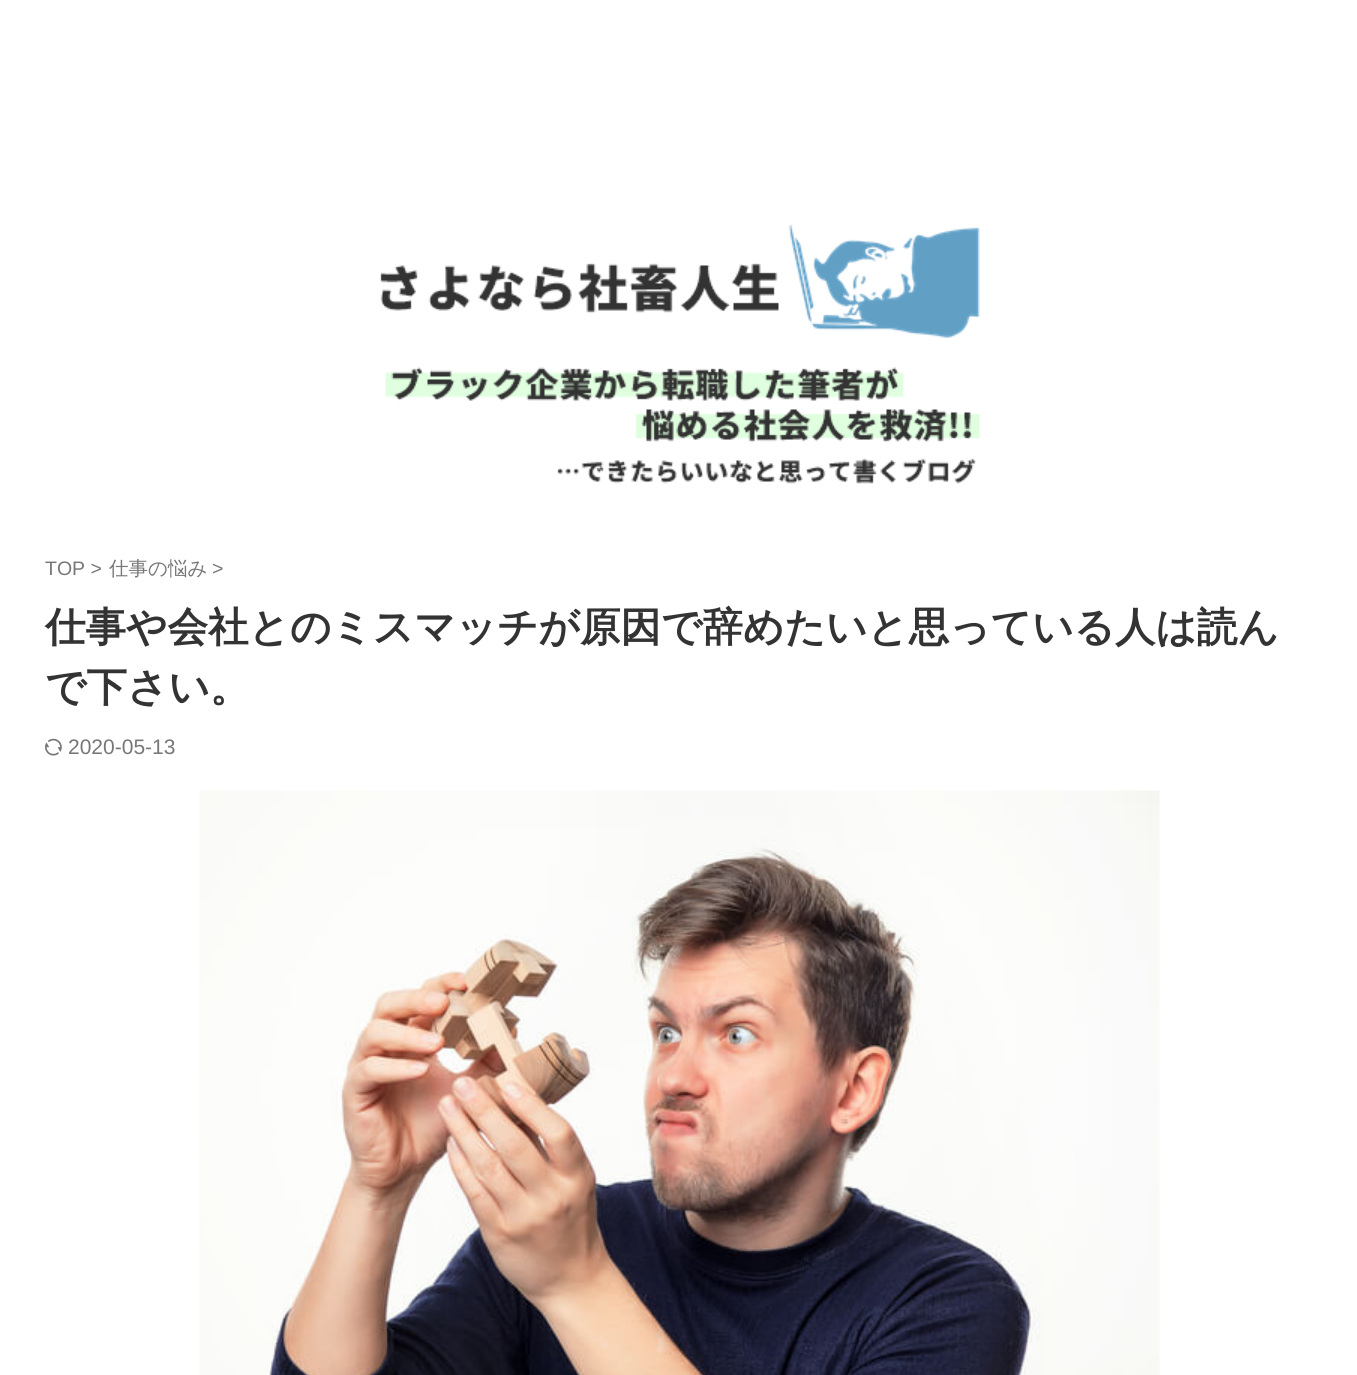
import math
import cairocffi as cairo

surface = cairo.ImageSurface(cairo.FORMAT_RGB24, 1357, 1375)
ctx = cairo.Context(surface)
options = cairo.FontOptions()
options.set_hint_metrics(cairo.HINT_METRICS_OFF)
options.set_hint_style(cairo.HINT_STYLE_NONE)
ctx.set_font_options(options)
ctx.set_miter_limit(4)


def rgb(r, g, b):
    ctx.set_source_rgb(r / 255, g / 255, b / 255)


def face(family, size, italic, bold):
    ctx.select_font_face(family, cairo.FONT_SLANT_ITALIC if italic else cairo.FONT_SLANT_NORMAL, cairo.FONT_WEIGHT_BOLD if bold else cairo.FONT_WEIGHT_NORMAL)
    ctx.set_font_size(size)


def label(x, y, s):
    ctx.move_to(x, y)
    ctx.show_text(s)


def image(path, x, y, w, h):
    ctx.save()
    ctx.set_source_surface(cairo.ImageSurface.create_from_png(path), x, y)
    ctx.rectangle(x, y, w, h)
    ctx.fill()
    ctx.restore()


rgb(255, 255, 255)
ctx.paint()
image('image0.png', 380, 224, 600, 260)
face('Liberation Sans', 19.5, 0, 0)
rgb(119, 119, 119)
label(45, 575, 'TOP >')
face('WenQuanYi Zen Hei Medium', 19.5, 0, 0)
label(109, 575, '仕事の悩み')
face('Liberation Sans', 19.5, 0, 0)
label(212, 575, '>')
face('WenQuanYi Zen Hei', 40.5, 0, 1)
rgb(51, 51, 51)
label(45, 641, '仕事や会社とのミスマッチが原因で辞めたいと思っている人は読ん')
label(45, 701, 'で下さい。')
image('image1.png', 45, 738, 17, 18)
face('Liberation Sans', 21, 0, 0)
rgb(119, 119, 119)
label(68, 754, '2020-05-13')
image('image2.png', 199, 790, 961, 585)
surface.write_to_png('render.png')
